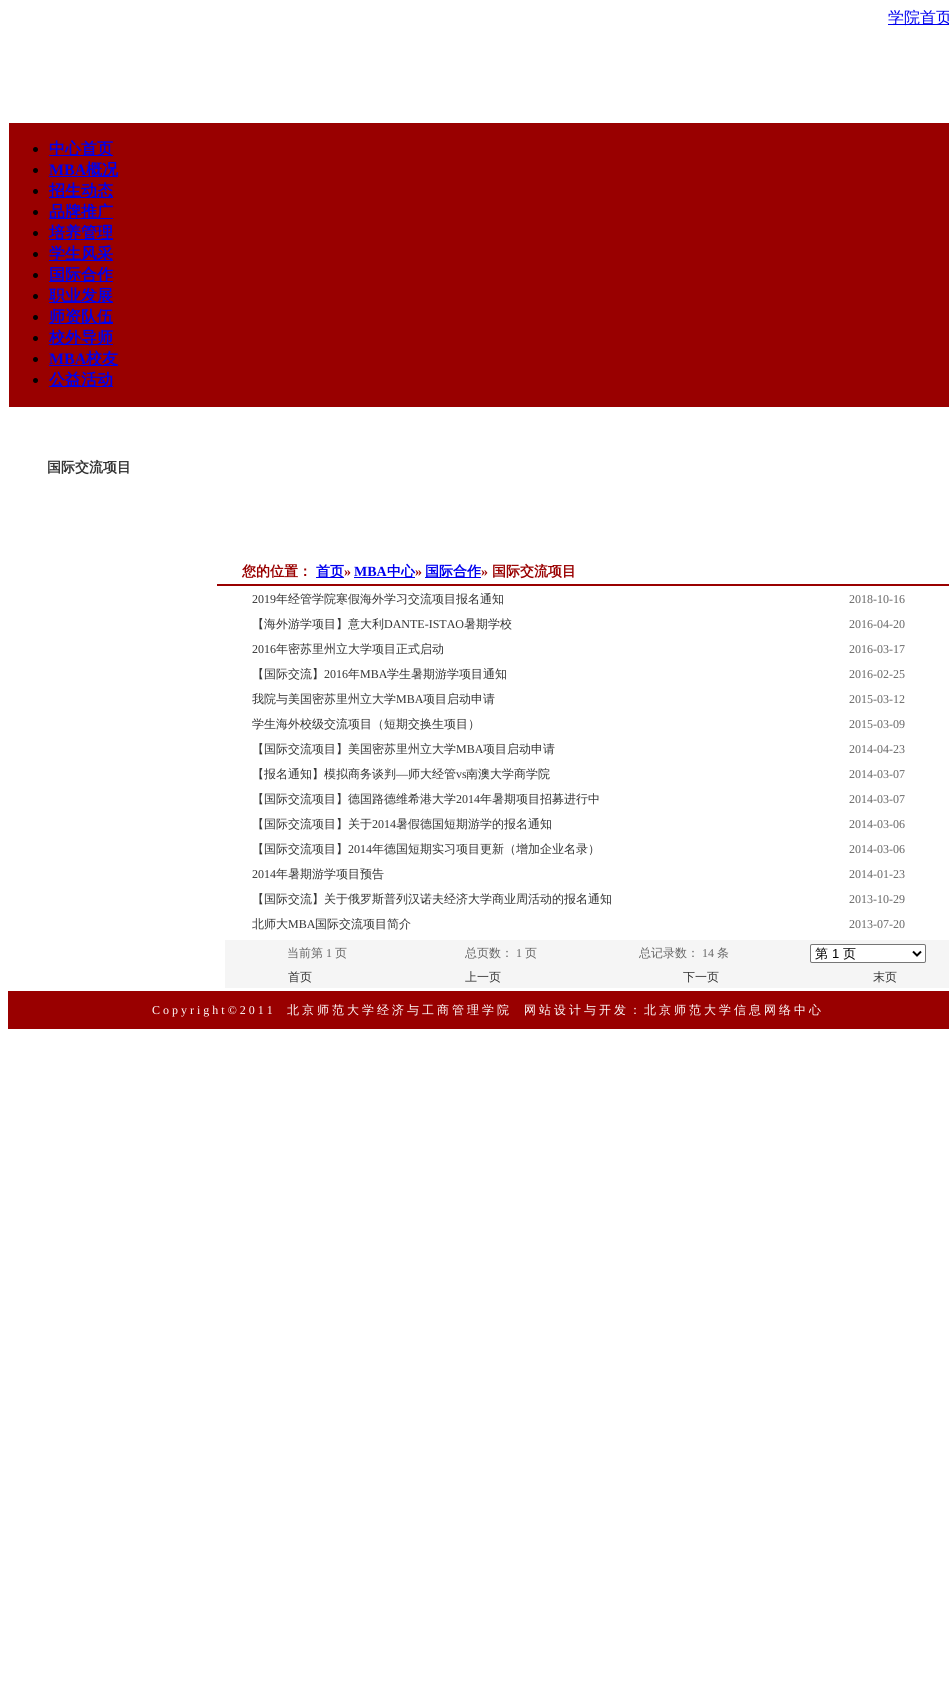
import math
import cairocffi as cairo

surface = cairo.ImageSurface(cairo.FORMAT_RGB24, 949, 1690)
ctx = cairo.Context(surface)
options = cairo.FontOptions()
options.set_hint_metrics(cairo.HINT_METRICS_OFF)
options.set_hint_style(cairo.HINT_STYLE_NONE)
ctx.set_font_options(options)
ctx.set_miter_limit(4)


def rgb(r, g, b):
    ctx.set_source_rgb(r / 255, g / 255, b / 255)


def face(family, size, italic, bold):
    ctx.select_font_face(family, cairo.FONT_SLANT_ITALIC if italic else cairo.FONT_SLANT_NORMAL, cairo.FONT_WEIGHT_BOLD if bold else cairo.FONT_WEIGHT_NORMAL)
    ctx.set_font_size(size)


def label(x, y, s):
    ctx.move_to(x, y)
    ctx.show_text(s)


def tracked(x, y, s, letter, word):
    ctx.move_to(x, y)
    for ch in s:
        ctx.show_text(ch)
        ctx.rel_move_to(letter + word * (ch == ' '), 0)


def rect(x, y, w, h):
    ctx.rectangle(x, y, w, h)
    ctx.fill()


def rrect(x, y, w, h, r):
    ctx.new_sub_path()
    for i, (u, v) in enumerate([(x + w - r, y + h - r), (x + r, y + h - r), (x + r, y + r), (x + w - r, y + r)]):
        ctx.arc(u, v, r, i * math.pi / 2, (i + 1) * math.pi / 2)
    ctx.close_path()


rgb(255, 255, 255)
ctx.paint()
rgb(0, 0, 238)
rect(888, 24, 61, 1)
face('WenQuanYi Zen Hei Medium', 16, 0, 0)
label(888, 23, '学院首页')
rgb(153, 0, 0)
rect(9, 123, 940, 284)
rgb(0, 0, 0)
ctx.new_path()
ctx.arc(35.5, 149.5, 2.5, 0, 2 * math.pi)
ctx.fill()
rgb(0, 0, 238)
rect(49, 155, 64, 1)
face('WenQuanYi Zen Hei', 16, 0, 1)
label(49, 154, '中心首页')
rgb(0, 0, 0)
ctx.new_path()
ctx.arc(35.5, 170.5, 2.5, 0, 2 * math.pi)
ctx.fill()
face('Liberation Serif', 16, 0, 1)
rgb(0, 0, 238)
label(49, 175, 'MBA')
rect(49, 176, 69, 1)
face('WenQuanYi Zen Hei', 16, 0, 1)
label(86, 175, '概况')
rgb(0, 0, 0)
ctx.new_path()
ctx.arc(35.5, 191.5, 2.5, 0, 2 * math.pi)
ctx.fill()
rgb(0, 0, 238)
rect(49, 197, 64, 1)
label(49, 196, '招生动态')
rgb(0, 0, 0)
ctx.new_path()
ctx.arc(35.5, 212.5, 2.5, 0, 2 * math.pi)
ctx.fill()
rgb(0, 0, 238)
rect(49, 218, 64, 1)
label(49, 217, '品牌推广')
rgb(0, 0, 0)
ctx.new_path()
ctx.arc(35.5, 233.5, 2.5, 0, 2 * math.pi)
ctx.fill()
rgb(0, 0, 238)
rect(49, 239, 64, 1)
label(49, 238, '培养管理')
rgb(0, 0, 0)
ctx.new_path()
ctx.arc(35.5, 254.5, 2.5, 0, 2 * math.pi)
ctx.fill()
rgb(0, 0, 238)
rect(49, 260, 64, 1)
label(49, 259, '学生风采')
rgb(0, 0, 0)
ctx.new_path()
ctx.arc(35.5, 275.5, 2.5, 0, 2 * math.pi)
ctx.fill()
rgb(0, 0, 238)
rect(49, 281, 64, 1)
label(49, 280, '国际合作')
rgb(0, 0, 0)
ctx.new_path()
ctx.arc(35.5, 296.5, 2.5, 0, 2 * math.pi)
ctx.fill()
rgb(0, 0, 238)
rect(49, 302, 64, 1)
label(49, 301, '职业发展')
rgb(0, 0, 0)
ctx.new_path()
ctx.arc(35.5, 317.5, 2.5, 0, 2 * math.pi)
ctx.fill()
rgb(0, 0, 238)
rect(49, 323, 64, 1)
label(49, 322, '师资队伍')
rgb(0, 0, 0)
ctx.new_path()
ctx.arc(35.5, 338.5, 2.5, 0, 2 * math.pi)
ctx.fill()
rgb(0, 0, 238)
rect(49, 344, 64, 1)
label(49, 343, '校外导师')
rgb(0, 0, 0)
ctx.new_path()
ctx.arc(35.5, 359.5, 2.5, 0, 2 * math.pi)
ctx.fill()
face('Liberation Serif', 16, 0, 1)
rgb(0, 0, 238)
label(49, 364, 'MBA')
rect(49, 365, 69, 1)
face('WenQuanYi Zen Hei', 16, 0, 1)
label(86, 364, '校友')
rgb(0, 0, 0)
ctx.new_path()
ctx.arc(35.5, 380.5, 2.5, 0, 2 * math.pi)
ctx.fill()
rgb(0, 0, 238)
rect(49, 386, 64, 1)
label(49, 385, '公益活动')
face('WenQuanYi Zen Hei', 14, 0, 1)
rgb(51, 51, 51)
label(47, 472, '国际交流项目')
rgb(153, 0, 0)
rect(217, 584, 732, 2)
label(242, 576, '您的位置：')
rgb(0, 0, 238)
rect(316, 577, 28, 1)
label(316, 576, '首页')
face('Liberation Serif', 14, 0, 1)
rgb(153, 0, 0)
label(344, 576, '»')
rgb(0, 0, 238)
label(354, 576, 'MBA')
rect(354, 577, 61, 1)
face('WenQuanYi Zen Hei', 14, 0, 1)
label(387, 576, '中心')
face('Liberation Serif', 14, 0, 1)
rgb(153, 0, 0)
label(415, 576, '»')
rgb(0, 0, 238)
rect(425, 577, 56, 1)
face('WenQuanYi Zen Hei', 14, 0, 1)
label(425, 576, '国际合作')
face('Liberation Serif', 14, 0, 1)
rgb(153, 0, 0)
label(481, 576, '»')
face('WenQuanYi Zen Hei', 14, 0, 1)
label(492, 576, '国际交流项目')
face('Liberation Serif', 12, 0, 0)
rgb(51, 51, 51)
label(252, 603, '2019')
face('WenQuanYi Zen Hei Medium', 12, 0, 0)
label(276, 603, '年经管学院寒假海外学习交流项目报名通知')
face('Liberation Serif', 12, 0, 0)
rgb(102, 102, 102)
label(849, 603, '2018-10-16')
face('WenQuanYi Zen Hei Medium', 12, 0, 0)
rgb(51, 51, 51)
label(252, 628, '【海外游学项目】意大利')
face('Liberation Serif', 12, 0, 0)
label(384, 628, 'DANTE-ISTAO')
face('WenQuanYi Zen Hei Medium', 12, 0, 0)
label(464, 628, '暑期学校')
face('Liberation Serif', 12, 0, 0)
rgb(102, 102, 102)
label(849, 628, '2016-04-20')
rgb(51, 51, 51)
label(252, 653, '2016')
face('WenQuanYi Zen Hei Medium', 12, 0, 0)
label(276, 653, '年密苏里州立大学项目正式启动')
face('Liberation Serif', 12, 0, 0)
rgb(102, 102, 102)
label(849, 653, '2016-03-17')
face('WenQuanYi Zen Hei Medium', 12, 0, 0)
rgb(51, 51, 51)
label(252, 678, '【国际交流】')
face('Liberation Serif', 12, 0, 0)
label(324, 678, '2016')
face('WenQuanYi Zen Hei Medium', 12, 0, 0)
label(348, 678, '年')
face('Liberation Serif', 12, 0, 0)
label(360, 678, 'MBA')
face('WenQuanYi Zen Hei Medium', 12, 0, 0)
label(387, 678, '学生暑期游学项目通知')
face('Liberation Serif', 12, 0, 0)
rgb(102, 102, 102)
label(849, 678, '2016-02-25')
face('WenQuanYi Zen Hei Medium', 12, 0, 0)
rgb(51, 51, 51)
label(252, 703, '我院与美国密苏里州立大学')
face('Liberation Serif', 12, 0, 0)
label(396, 703, 'MBA')
face('WenQuanYi Zen Hei Medium', 12, 0, 0)
label(423, 703, '项目启动申请')
face('Liberation Serif', 12, 0, 0)
rgb(102, 102, 102)
label(849, 703, '2015-03-12')
face('WenQuanYi Zen Hei Medium', 12, 0, 0)
rgb(51, 51, 51)
label(252, 728, '学生海外校级交流项目（短期交换生项目）')
face('Liberation Serif', 12, 0, 0)
rgb(102, 102, 102)
label(849, 728, '2015-03-09')
face('WenQuanYi Zen Hei Medium', 12, 0, 0)
rgb(51, 51, 51)
label(252, 753, '【国际交流项目】美国密苏里州立大学')
face('Liberation Serif', 12, 0, 0)
label(456, 753, 'MBA')
face('WenQuanYi Zen Hei Medium', 12, 0, 0)
label(483, 753, '项目启动申请')
face('Liberation Serif', 12, 0, 0)
rgb(102, 102, 102)
label(849, 753, '2014-04-23')
face('WenQuanYi Zen Hei Medium', 12, 0, 0)
rgb(51, 51, 51)
label(252, 778, '【报名通知】模拟商务谈判')
face('Liberation Serif', 12, 0, 0)
label(396, 778, '—')
face('WenQuanYi Zen Hei Medium', 12, 0, 0)
label(408, 778, '师大经管')
face('Liberation Serif', 12, 0, 0)
label(456, 778, 'vs')
face('WenQuanYi Zen Hei Medium', 12, 0, 0)
label(466, 778, '南澳大学商学院')
face('Liberation Serif', 12, 0, 0)
rgb(102, 102, 102)
label(849, 778, '2014-03-07')
face('WenQuanYi Zen Hei Medium', 12, 0, 0)
rgb(51, 51, 51)
label(252, 803, '【国际交流项目】德国路德维希港大学')
face('Liberation Serif', 12, 0, 0)
label(456, 803, '2014')
face('WenQuanYi Zen Hei Medium', 12, 0, 0)
label(480, 803, '年暑期项目招募进行中')
face('Liberation Serif', 12, 0, 0)
rgb(102, 102, 102)
label(849, 803, '2014-03-07')
face('WenQuanYi Zen Hei Medium', 12, 0, 0)
rgb(51, 51, 51)
label(252, 828, '【国际交流项目】关于')
face('Liberation Serif', 12, 0, 0)
label(372, 828, '2014')
face('WenQuanYi Zen Hei Medium', 12, 0, 0)
label(396, 828, '暑假德国短期游学的报名通知')
face('Liberation Serif', 12, 0, 0)
rgb(102, 102, 102)
label(849, 828, '2014-03-06')
face('WenQuanYi Zen Hei Medium', 12, 0, 0)
rgb(51, 51, 51)
label(252, 853, '【国际交流项目】')
face('Liberation Serif', 12, 0, 0)
label(348, 853, '2014')
face('WenQuanYi Zen Hei Medium', 12, 0, 0)
label(372, 853, '年德国短期实习项目更新（增加企业名录）')
face('Liberation Serif', 12, 0, 0)
rgb(102, 102, 102)
label(849, 853, '2014-03-06')
rgb(51, 51, 51)
label(252, 878, '2014')
face('WenQuanYi Zen Hei Medium', 12, 0, 0)
label(276, 878, '年暑期游学项目预告')
face('Liberation Serif', 12, 0, 0)
rgb(102, 102, 102)
label(849, 878, '2014-01-23')
face('WenQuanYi Zen Hei Medium', 12, 0, 0)
rgb(51, 51, 51)
label(252, 903, '【国际交流】关于俄罗斯普列汉诺夫经济大学商业周活动的报名通知')
face('Liberation Serif', 12, 0, 0)
rgb(102, 102, 102)
label(849, 903, '2013-10-29')
face('WenQuanYi Zen Hei Medium', 12, 0, 0)
rgb(51, 51, 51)
label(252, 928, '北师大')
face('Liberation Serif', 12, 0, 0)
label(288, 928, 'MBA')
face('WenQuanYi Zen Hei Medium', 12, 0, 0)
label(315, 928, '国际交流项目简介')
face('Liberation Serif', 12, 0, 0)
rgb(102, 102, 102)
label(849, 928, '2013-07-20')
rgb(245, 245, 245)
rect(225, 940, 724, 48)
face('WenQuanYi Zen Hei Medium', 12, 0, 0)
rgb(102, 102, 102)
label(287, 957, '当前第')
face('Liberation Serif', 12, 0, 0)
label(326, 957, '1')
face('WenQuanYi Zen Hei Medium', 12, 0, 0)
label(335, 957, '页')
label(465, 957, '总页数：')
face('Liberation Serif', 12, 0, 0)
label(516, 957, '1')
face('WenQuanYi Zen Hei Medium', 12, 0, 0)
label(525, 957, '页')
label(639, 957, '总记录数：')
face('Liberation Serif', 12, 0, 0)
label(702, 957, '14')
face('WenQuanYi Zen Hei Medium', 12, 0, 0)
label(717, 957, '条')
rgb(255, 255, 255)
rrect(810.5, 944.5, 115, 18, 1.5)
ctx.fill_preserve()
rgb(118, 118, 118)
ctx.set_line_width(1)
ctx.stroke()
ctx.new_path()
ctx.move_to(913, 951.5)
ctx.line_to(917, 955.5)
ctx.line_to(921, 951.5)
rgb(0, 0, 0)
ctx.set_line_width(2)
ctx.stroke()
face('WenQuanYi Zen Hei Medium', 13, 0, 0)
label(815, 958, '第')
face('Liberation Sans', 13, 0, 0)
label(832, 958, '1')
face('WenQuanYi Zen Hei Medium', 13, 0, 0)
label(843, 958, '页')
face('WenQuanYi Zen Hei Medium', 12, 0, 0)
rgb(51, 51, 51)
label(288, 981, '首页')
label(465, 981, '上一页')
label(683, 981, '下一页')
label(873, 981, '末页')
rgb(153, 0, 0)
rect(8, 991, 941, 38)
face('Liberation Serif', 12, 0, 0)
rgb(255, 255, 255)
tracked(152, 1014, 'Copyright©2011', 3, 0)
face('WenQuanYi Zen Hei Medium', 12, 0, 0)
tracked(287, 1014, '北京师范大学经济与工商管理学院', 3, 0)
tracked(524, 1014, '网站设计与开发：北京师范大学信息网络中心', 3, 0)
surface.write_to_png('render.png')
